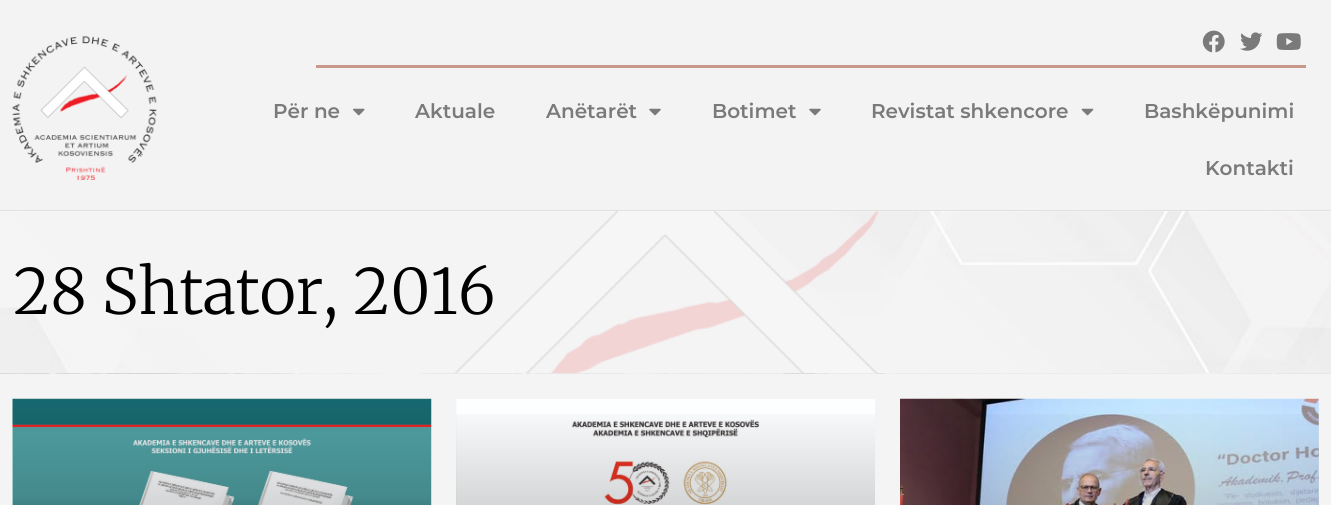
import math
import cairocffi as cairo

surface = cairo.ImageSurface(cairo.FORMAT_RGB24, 1331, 505)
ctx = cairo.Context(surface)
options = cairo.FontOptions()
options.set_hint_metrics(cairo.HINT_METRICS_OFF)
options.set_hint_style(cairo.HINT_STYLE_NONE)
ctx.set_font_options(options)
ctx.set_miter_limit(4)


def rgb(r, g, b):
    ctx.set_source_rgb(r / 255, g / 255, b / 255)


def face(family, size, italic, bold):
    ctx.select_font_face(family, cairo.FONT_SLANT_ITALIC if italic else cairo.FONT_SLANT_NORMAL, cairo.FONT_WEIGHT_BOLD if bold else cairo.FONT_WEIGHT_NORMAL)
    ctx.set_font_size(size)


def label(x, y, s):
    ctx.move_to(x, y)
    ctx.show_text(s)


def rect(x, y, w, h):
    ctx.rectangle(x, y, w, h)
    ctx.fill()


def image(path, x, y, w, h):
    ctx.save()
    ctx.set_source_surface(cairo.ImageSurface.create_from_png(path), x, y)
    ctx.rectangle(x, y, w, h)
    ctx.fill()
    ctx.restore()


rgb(255, 255, 255)
ctx.paint()
rgb(243, 243, 243)
rect(0, 0, 1331, 210)
rgb(224, 224, 224)
rect(0, 210, 1331, 1)
image('image0.png', 12, 36, 145, 144)
image('image1.png', 1202, 30, 23, 23)
image('image2.png', 1240, 32, 23, 19)
image('image3.png', 1276, 33, 25, 17)
rgb(200, 152, 138)
rect(316, 65, 990, 3)
face('Montserrat SemiBold', 20, 0, 0)
rgb(122, 122, 122)
label(273, 118, 'Për ne')
image('image4.png', 353, 108, 12, 8)
label(415, 118, 'Aktuale')
label(546, 118, 'Anëtarët')
image('image5.png', 649, 108, 12, 8)
label(712, 118, 'Botimet')
image('image5.png', 809, 108, 12, 8)
label(871, 118, 'Revistat shkencore')
image('image6.png', 1081, 108, 13, 8)
label(1144, 118, 'Bashkëpunimi')
label(1205, 175, 'Kontakti')
image('image7.png', 0, 211, 1331, 162)
face('Merriweather Light', 62.5, 0, 0)
rgb(0, 0, 0)
label(13, 314, '28 Shtator, 2016')
image('image8.png', 0, 373, 1331, 1)
rgb(244, 244, 244)
rect(0, 374, 1331, 131)
image('image9.png', 12, 398, 420, 107)
image('image10.png', 456, 399, 419, 106)
gradient = cairo.LinearGradient(666, 399, 666, 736)
gradient.add_color_stop_rgba(0, 0, 0, 0, 0)
gradient.add_color_stop_rgba(1, 0, 0, 0, 0.5)
ctx.set_source(gradient)
rect(456, 414, 419, 91)
image('image11.png', 900, 398, 419, 107)
gradient = cairo.LinearGradient(1109, 399, 1109, 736)
gradient.add_color_stop_rgba(0, 0, 0, 0, 0)
gradient.add_color_stop_rgba(1, 0, 0, 0, 0.5)
ctx.set_source(gradient)
rect(900, 414, 419, 91)
surface.write_to_png('render.png')
